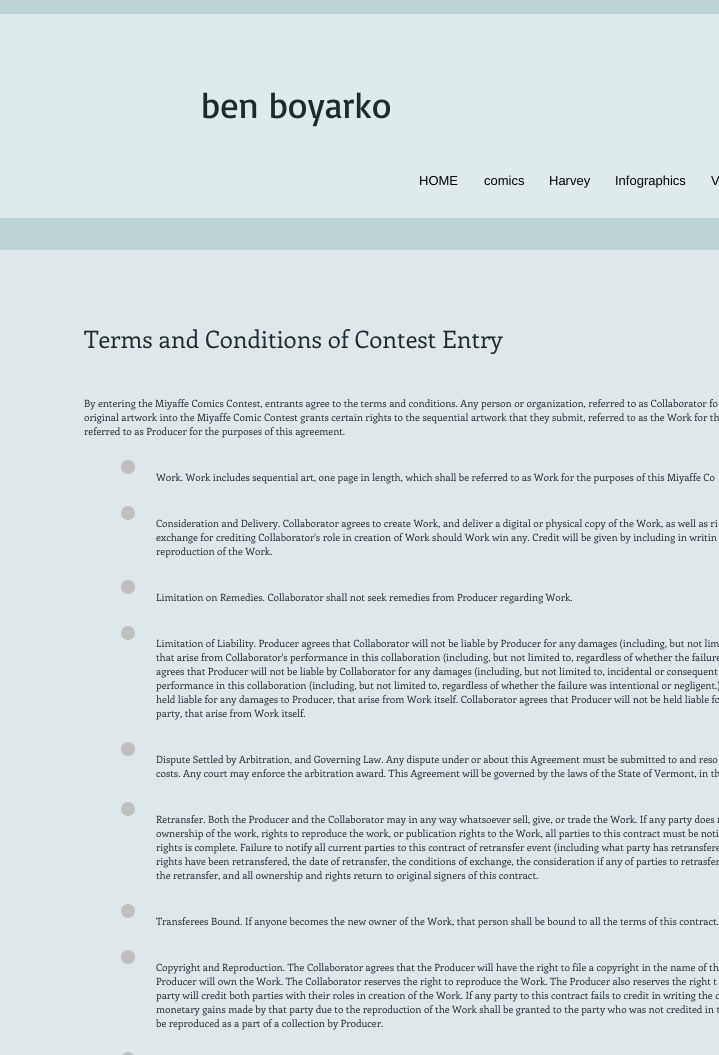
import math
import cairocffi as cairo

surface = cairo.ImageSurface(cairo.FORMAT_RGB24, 719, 1055)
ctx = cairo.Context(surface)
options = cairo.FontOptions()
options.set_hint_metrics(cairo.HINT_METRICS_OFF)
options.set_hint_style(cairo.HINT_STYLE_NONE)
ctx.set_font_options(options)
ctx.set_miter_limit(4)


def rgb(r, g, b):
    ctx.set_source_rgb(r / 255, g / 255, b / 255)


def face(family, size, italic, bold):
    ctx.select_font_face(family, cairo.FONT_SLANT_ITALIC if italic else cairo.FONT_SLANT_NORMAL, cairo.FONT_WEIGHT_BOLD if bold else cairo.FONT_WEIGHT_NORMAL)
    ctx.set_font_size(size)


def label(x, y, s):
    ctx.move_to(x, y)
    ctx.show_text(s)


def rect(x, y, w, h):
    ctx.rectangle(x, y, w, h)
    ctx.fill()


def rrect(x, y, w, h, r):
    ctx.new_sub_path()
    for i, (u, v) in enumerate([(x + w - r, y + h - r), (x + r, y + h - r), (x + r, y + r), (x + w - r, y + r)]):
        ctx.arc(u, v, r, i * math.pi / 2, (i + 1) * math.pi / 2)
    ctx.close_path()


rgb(189, 212, 214)
ctx.paint()
rgb(222, 234, 235)
rect(0, 14, 719, 204)
face('Basic', 36, 0, 0)
rgb(29, 43, 44)
label(201, 118, 'ben boyarko')
face('Liberation Sans', 13, 0, 0)
rgb(0, 0, 0)
label(419, 185, 'HOME')
label(484, 185, 'comics')
label(549, 185, 'Harvey')
label(615, 185, 'Infographics')
label(711, 185, 'V')
rgb(222, 232, 235)
rect(0, 250, 719, 805)
face('Enriqueta', 24, 0, 0)
rgb(29, 43, 44)
label(84, 348, 'Terms and Conditions of Contest Entry')
face('Enriqueta', 10, 0, 0)
label(84, 407, 'By entering the Miyaffe Comics Contest, entrants agree to the terms and conditions. Any person or organization, referred to as Collaborator fo')
label(84, 421, 'original artwork into the Miyaffe Comic Contest grants certain rights to the sequential artwork that they submit, referred to as the Work for th')
label(84, 435, 'referred to as Producer for the purposes of this agreement.')
rgb(191, 191, 191)
ctx.new_path()
ctx.arc(128, 467, 7, 0, 2 * math.pi)
ctx.fill()
rgb(29, 43, 44)
label(156, 481, 'Work. Work includes sequential art, one page in length, which shall be referred to as Work for the purposes of this Miyaffe Co')
rgb(191, 191, 191)
ctx.new_path()
ctx.arc(128, 513, 7, 0, 2 * math.pi)
ctx.fill()
rgb(29, 43, 44)
label(156, 527, 'Consideration and Delivery. Collaborator agrees to create Work, and deliver a digital or physical copy of the Work, as well as ri')
label(156, 541, 'exchange for crediting Collaborator\'s role in creation of Work should Work win any. Credit will be given by including in writin')
label(156, 555, 'reproduction of the Work.')
rgb(191, 191, 191)
ctx.new_path()
ctx.arc(128, 587, 7, 0, 2 * math.pi)
ctx.fill()
rgb(29, 43, 44)
label(156, 601, 'Limitation on Remedies. Collaborator shall not seek remedies from Producer regarding Work.')
rgb(191, 191, 191)
ctx.new_path()
ctx.arc(128, 633, 7, 0, 2 * math.pi)
ctx.fill()
rgb(29, 43, 44)
label(156, 647, 'Limitation of Liability. Producer agrees that Collaborator will not be liable by Producer for any damages (including, but not lim')
label(156, 661, 'that arise from Collaborator\'s performance in this collaboration (including, but not limited to, regardless of whether the failure')
label(156, 675, 'agrees that Producer will not be liable by Collaborator for any damages (including, but not limited to, incidental or consequent')
label(156, 689, 'performance in this collaboration (including, but not limited to, regardless of whether the failure was intentional or negligent.)')
label(156, 703, 'held liable for any damages to Producer, that arise from Work itself. Collaborator agrees that Producer will not be held liable fo')
label(156, 717, 'party, that arise from Work itself.')
rgb(191, 191, 191)
ctx.new_path()
ctx.arc(128, 749, 7, 0, 2 * math.pi)
ctx.fill()
rgb(29, 43, 44)
label(156, 763, 'Dispute Settled by Arbitration, and Governing Law. Any dispute under or about this Agreement must be submitted to and reso')
label(156, 777, 'costs. Any court may enforce the arbitration award. This Agreement will be governed by the laws of the State of Vermont, in th')
rgb(191, 191, 191)
ctx.new_path()
ctx.arc(128, 809, 7, 0, 2 * math.pi)
ctx.fill()
rgb(29, 43, 44)
label(156, 823, 'Retransfer. Both the Producer and the Collaborator may in any way whatsoever sell, give, or trade the Work. If any party does r')
label(156, 837, 'ownership of the work, rights to reproduce the work, or publication rights to the Work, all parties to this contract must be noti')
label(156, 851, 'rights is complete. Failure to notify all current parties to this contract of retransfer event (including what party has retransfere')
label(156, 865, 'rights have been retransfered, the date of retransfer, the conditions of exchange, the consideration if any of parties to retrasfer')
label(156, 879, 'the retransfer, and all ownership and rights return to original signers of this contract.')
rgb(191, 191, 191)
ctx.new_path()
ctx.arc(128, 911, 7, 0, 2 * math.pi)
ctx.fill()
rgb(29, 43, 44)
label(156, 925, 'Transferees Bound. If anyone becomes the new owner of the Work, that person shall be bound to all the terms of this contract.')
rgb(191, 191, 191)
ctx.new_path()
ctx.arc(128, 957, 7, 0, 2 * math.pi)
ctx.fill()
rgb(29, 43, 44)
label(156, 971, 'Copyright and Reproduction. The Collaborator agrees that the Producer will have the right to file a copyright in the name of th')
label(156, 985, 'Producer will own the Work. The Collaborator reserves the right to reproduce the Work. The Producer also reserves the right t')
label(156, 999, 'party will credit both parties with their roles in creation of the Work. If any party to this contract fails to credit in writing the o')
label(156, 1013, 'monetary gains made by that party due to the reproduction of the Work shall be granted to the party who was not credited in t')
label(156, 1027, 'be reproduced as a part of a collection by Producer.')
rgb(191, 191, 191)
rrect(121, 1052, 14, 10, 7)
ctx.fill()
surface.write_to_png('render.png')
